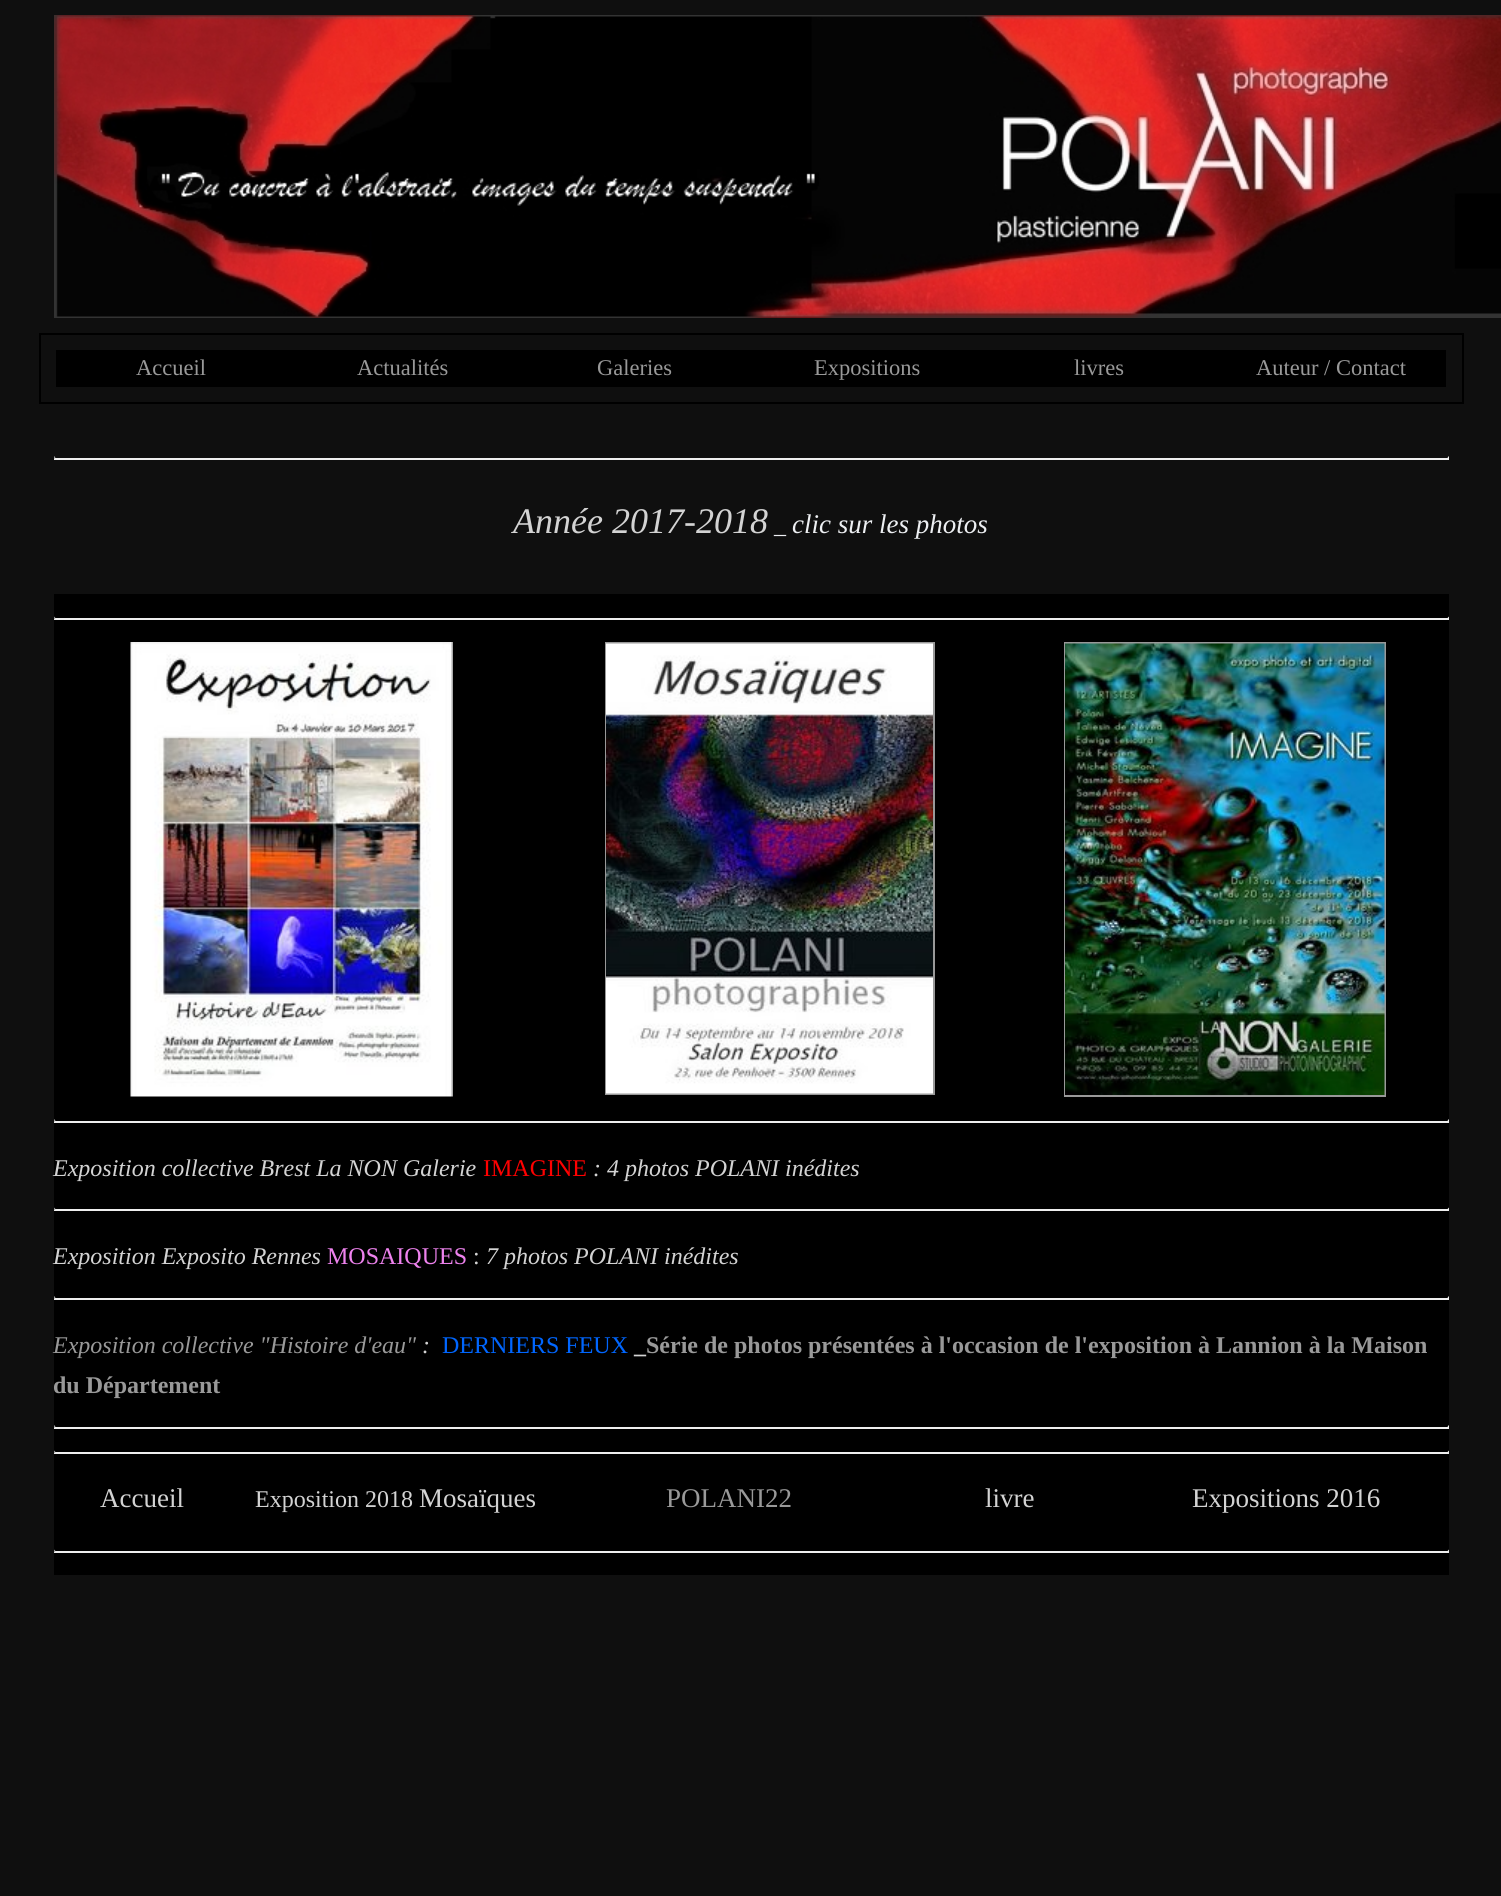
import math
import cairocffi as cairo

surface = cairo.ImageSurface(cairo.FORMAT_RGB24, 1501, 1896)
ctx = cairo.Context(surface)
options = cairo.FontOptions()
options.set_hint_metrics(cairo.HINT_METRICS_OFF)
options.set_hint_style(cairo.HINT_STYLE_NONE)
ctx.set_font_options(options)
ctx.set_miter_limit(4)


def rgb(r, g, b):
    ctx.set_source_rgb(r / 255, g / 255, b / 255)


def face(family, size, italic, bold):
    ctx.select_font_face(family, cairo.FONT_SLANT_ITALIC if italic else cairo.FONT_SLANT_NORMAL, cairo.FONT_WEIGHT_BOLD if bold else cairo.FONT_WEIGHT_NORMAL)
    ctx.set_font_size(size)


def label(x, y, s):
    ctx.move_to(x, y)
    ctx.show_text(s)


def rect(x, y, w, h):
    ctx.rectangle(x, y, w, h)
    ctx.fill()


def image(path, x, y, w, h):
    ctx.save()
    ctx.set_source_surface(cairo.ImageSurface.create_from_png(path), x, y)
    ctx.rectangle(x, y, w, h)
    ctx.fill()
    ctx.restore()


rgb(15, 15, 15)
ctx.paint()
image('image0.png', 54, 15, 1447, 303)
ctx.rectangle(40, 334, 1423, 69)
rgb(0, 0, 0)
ctx.stroke()
rect(56, 350, 1390, 37)
face('Liberation Serif', 22.5, 0, 0)
rgb(153, 153, 153)
label(136, 375, 'Accueil')
label(357, 375, 'Actualités')
label(597, 375, 'Galeries')
label(814, 375, 'Expositions')
label(1074, 375, 'livres')
label(1256, 375, 'Auteur / Contact')
rgb(238, 238, 238)
ctx.new_path()
ctx.move_to(1449, 456)
ctx.line_to(1449, 459)
ctx.line_to(1447.5, 457.5)
ctx.close_path()
ctx.fill()
rect(54, 458, 1395, 2)
rgb(159, 159, 159)
ctx.new_path()
ctx.move_to(54, 459)
ctx.line_to(54, 456)
ctx.line_to(55.5, 457.5)
ctx.close_path()
ctx.fill()
face('Liberation Serif', 36, 1, 0)
rgb(211, 211, 211)
label(513, 533, 'Année 2017-2018')
face('Liberation Serif', 24, 0, 0)
rgb(237, 239, 242)
label(774, 533, '_')
face('Liberation Serif', 27, 1, 0)
label(792, 533, 'clic sur les photos')
rgb(0, 0, 0)
rect(54, 594, 1395, 981)
rgb(238, 238, 238)
ctx.new_path()
ctx.move_to(1449, 616.5)
ctx.line_to(1449, 619.5)
ctx.line_to(1447.5, 618)
ctx.close_path()
ctx.fill()
rect(54, 618, 1395, 2)
rgb(159, 159, 159)
ctx.new_path()
ctx.move_to(54, 619.5)
ctx.line_to(54, 616.5)
ctx.line_to(55.5, 618)
ctx.close_path()
ctx.fill()
image('image1.png', 130, 642, 323, 455)
ctx.rectangle(606, 643, 328, 451)
rgb(153, 153, 153)
ctx.stroke()
image('image2.png', 606, 643, 327, 451)
ctx.rectangle(1065, 643, 320, 453)
ctx.stroke()
image('image3.png', 1065, 643, 320, 452)
rgb(238, 238, 238)
ctx.new_path()
ctx.move_to(1449, 1119)
ctx.line_to(1449, 1122)
ctx.line_to(1447.5, 1120.5)
ctx.close_path()
ctx.fill()
rect(54, 1121, 1395, 2)
rgb(159, 159, 159)
ctx.new_path()
ctx.move_to(54, 1122)
ctx.line_to(54, 1119)
ctx.line_to(55.5, 1120.5)
ctx.close_path()
ctx.fill()
face('Liberation Serif', 24, 1, 0)
rgb(211, 211, 211)
label(53, 1176, 'Exposition collective Brest La NON Galerie')
face('Liberation Serif', 24, 0, 0)
rgb(255, 0, 0)
label(483, 1176, 'IMAGINE')
face('Liberation Serif', 24, 1, 0)
rgb(211, 211, 211)
label(593, 1176, ': 4 photos POLANI inédites')
rgb(238, 238, 238)
ctx.new_path()
ctx.move_to(1449, 1207.5)
ctx.line_to(1449, 1210.5)
ctx.line_to(1447.5, 1209)
ctx.close_path()
ctx.fill()
rect(54, 1209, 1395, 2)
rgb(159, 159, 159)
ctx.new_path()
ctx.move_to(54, 1210.5)
ctx.line_to(54, 1207.5)
ctx.line_to(55.5, 1209)
ctx.close_path()
ctx.fill()
rgb(211, 211, 211)
label(53, 1264, 'Exposition Exposito Rennes')
face('Liberation Serif', 24, 0, 0)
rgb(238, 130, 238)
label(327, 1264, 'MOSAIQUES')
rgb(211, 211, 211)
label(473, 1264, ':')
face('Liberation Serif', 24, 1, 0)
label(486, 1264, '7 photos POLANI inédites')
rgb(238, 238, 238)
ctx.new_path()
ctx.move_to(1449, 1296)
ctx.line_to(1449, 1299)
ctx.line_to(1447.5, 1297.5)
ctx.close_path()
ctx.fill()
rect(54, 1298, 1395, 2)
rgb(159, 159, 159)
ctx.new_path()
ctx.move_to(54, 1299)
ctx.line_to(54, 1296)
ctx.line_to(55.5, 1297.5)
ctx.close_path()
ctx.fill()
rgb(153, 153, 153)
label(53, 1353, 'Exposition collective "Histoire d\'eau"')
rgb(211, 211, 211)
label(422, 1353, ':')
face('Liberation Serif', 24, 0, 0)
rgb(0, 102, 255)
label(442, 1353, 'DERNIERS FEUX')
face('Liberation Serif', 24, 0, 1)
rgb(153, 153, 153)
label(646, 1353, 'Série de photos présentées à l\'occasion de l\'exposition à Lannion à la Maison')
rgb(211, 211, 211)
label(634, 1353, '_')
rgb(153, 153, 153)
label(53, 1393, 'du Département')
rgb(238, 238, 238)
ctx.new_path()
ctx.move_to(1449, 1425)
ctx.line_to(1449, 1428)
ctx.line_to(1447.5, 1426.5)
ctx.close_path()
ctx.fill()
rect(54, 1427, 1395, 2)
rgb(159, 159, 159)
ctx.new_path()
ctx.move_to(54, 1428)
ctx.line_to(54, 1425)
ctx.line_to(55.5, 1426.5)
ctx.close_path()
ctx.fill()
rgb(238, 238, 238)
ctx.new_path()
ctx.move_to(1449, 1450.5)
ctx.line_to(1449, 1453.5)
ctx.line_to(1447.5, 1452)
ctx.close_path()
ctx.fill()
rect(54, 1452, 1395, 2)
rgb(159, 159, 159)
ctx.new_path()
ctx.move_to(54, 1453.5)
ctx.line_to(54, 1450.5)
ctx.line_to(55.5, 1452)
ctx.close_path()
ctx.fill()
face('Liberation Serif', 27, 0, 0)
rgb(211, 211, 211)
label(100, 1507, 'Accueil')
face('Liberation Serif', 24, 0, 0)
label(255, 1507, 'Exposition 2018')
face('Liberation Serif', 27, 0, 0)
label(419, 1507, 'Mosaïques')
rgb(153, 153, 153)
label(666, 1507, 'POLANI22')
rgb(211, 211, 211)
label(985, 1507, 'livre')
label(1192, 1507, 'Expositions 2016')
rgb(238, 238, 238)
ctx.new_path()
ctx.move_to(1449, 1549.5)
ctx.line_to(1449, 1552.5)
ctx.line_to(1447.5, 1551)
ctx.close_path()
ctx.fill()
rect(54, 1551, 1395, 2)
rgb(159, 159, 159)
ctx.new_path()
ctx.move_to(54, 1552.5)
ctx.line_to(54, 1549.5)
ctx.line_to(55.5, 1551)
ctx.close_path()
ctx.fill()
surface.write_to_png('render.png')
